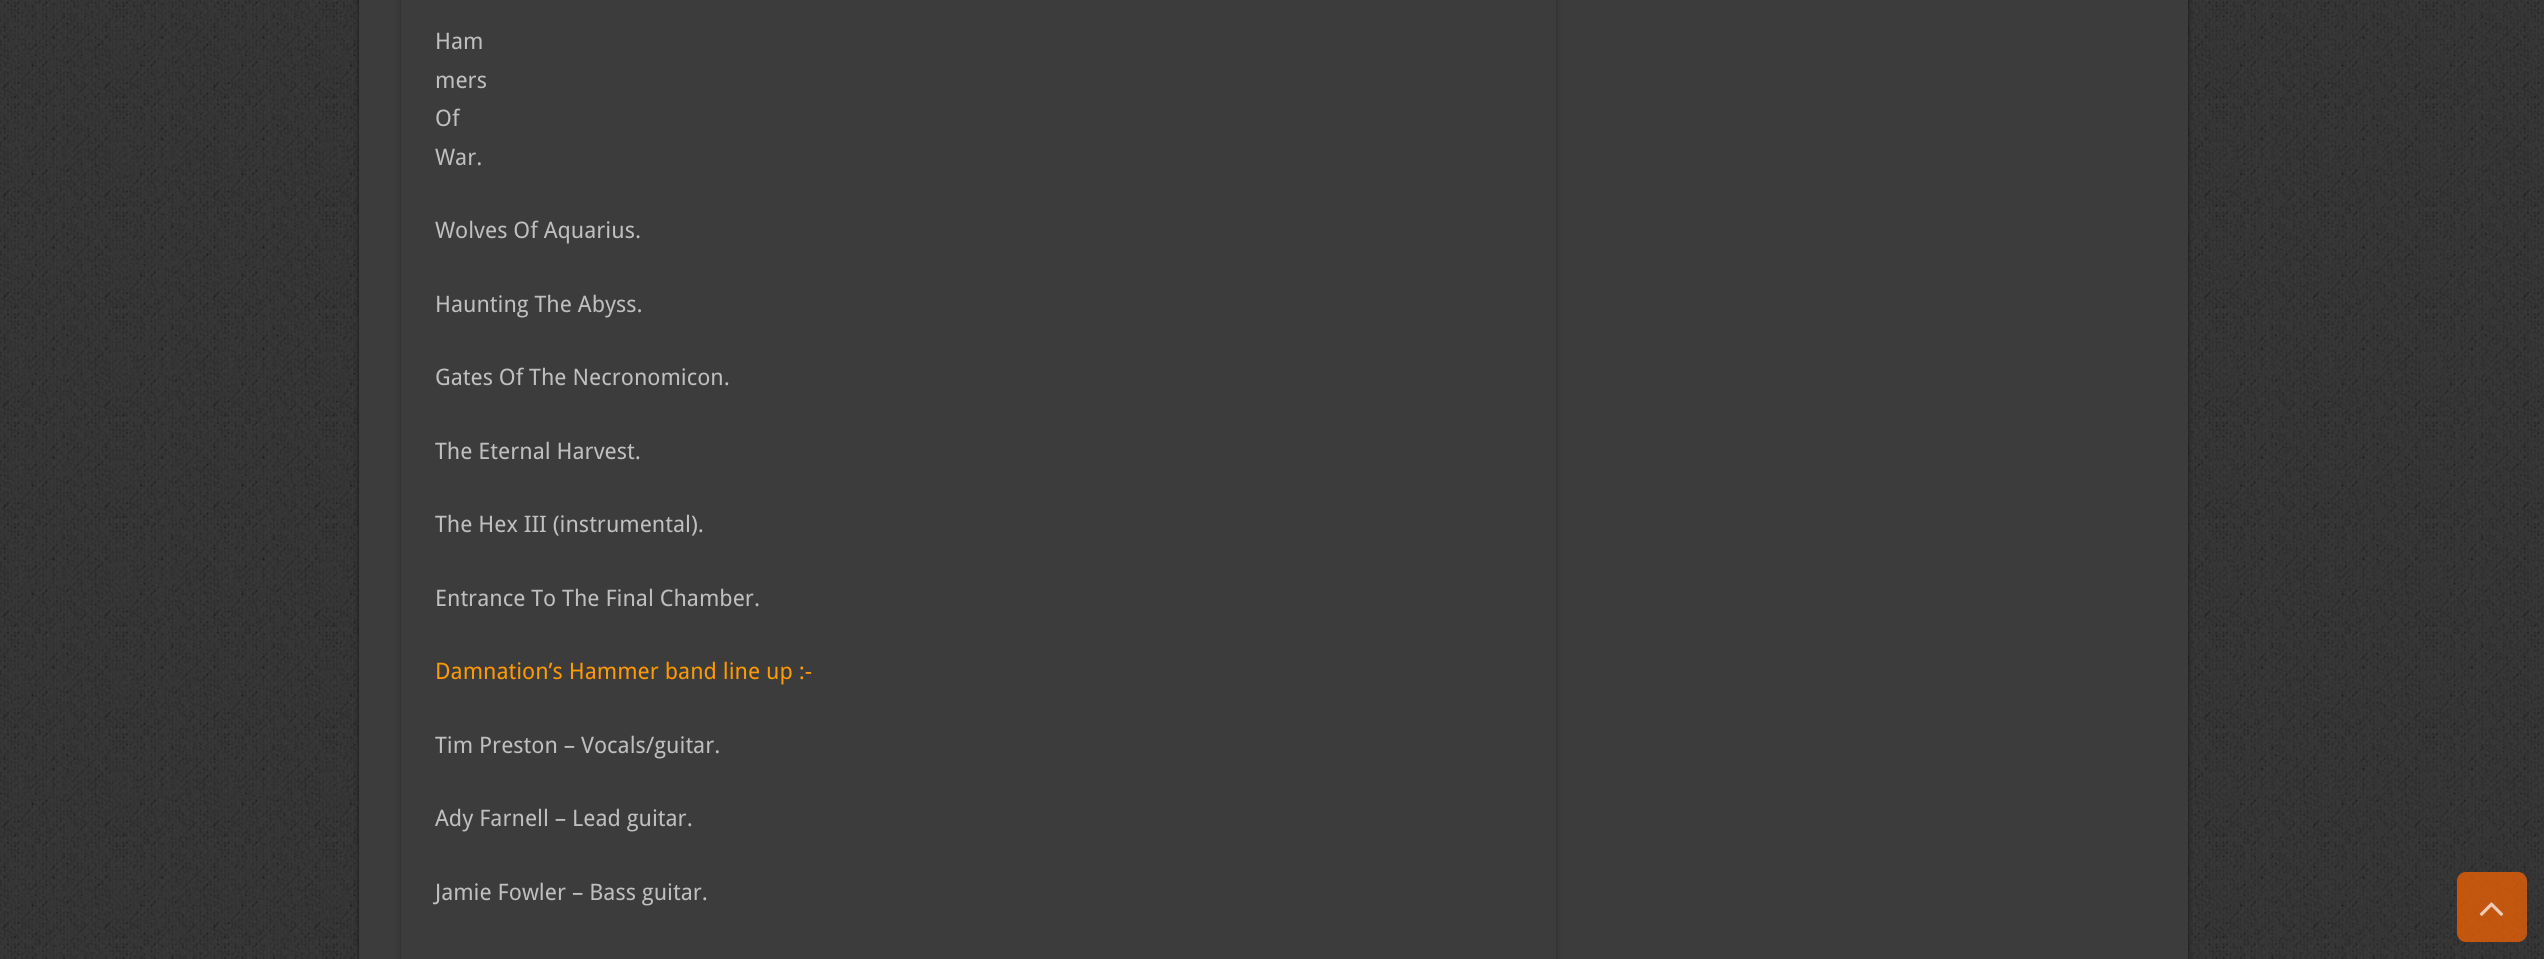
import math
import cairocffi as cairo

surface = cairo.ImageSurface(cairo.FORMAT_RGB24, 2544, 959)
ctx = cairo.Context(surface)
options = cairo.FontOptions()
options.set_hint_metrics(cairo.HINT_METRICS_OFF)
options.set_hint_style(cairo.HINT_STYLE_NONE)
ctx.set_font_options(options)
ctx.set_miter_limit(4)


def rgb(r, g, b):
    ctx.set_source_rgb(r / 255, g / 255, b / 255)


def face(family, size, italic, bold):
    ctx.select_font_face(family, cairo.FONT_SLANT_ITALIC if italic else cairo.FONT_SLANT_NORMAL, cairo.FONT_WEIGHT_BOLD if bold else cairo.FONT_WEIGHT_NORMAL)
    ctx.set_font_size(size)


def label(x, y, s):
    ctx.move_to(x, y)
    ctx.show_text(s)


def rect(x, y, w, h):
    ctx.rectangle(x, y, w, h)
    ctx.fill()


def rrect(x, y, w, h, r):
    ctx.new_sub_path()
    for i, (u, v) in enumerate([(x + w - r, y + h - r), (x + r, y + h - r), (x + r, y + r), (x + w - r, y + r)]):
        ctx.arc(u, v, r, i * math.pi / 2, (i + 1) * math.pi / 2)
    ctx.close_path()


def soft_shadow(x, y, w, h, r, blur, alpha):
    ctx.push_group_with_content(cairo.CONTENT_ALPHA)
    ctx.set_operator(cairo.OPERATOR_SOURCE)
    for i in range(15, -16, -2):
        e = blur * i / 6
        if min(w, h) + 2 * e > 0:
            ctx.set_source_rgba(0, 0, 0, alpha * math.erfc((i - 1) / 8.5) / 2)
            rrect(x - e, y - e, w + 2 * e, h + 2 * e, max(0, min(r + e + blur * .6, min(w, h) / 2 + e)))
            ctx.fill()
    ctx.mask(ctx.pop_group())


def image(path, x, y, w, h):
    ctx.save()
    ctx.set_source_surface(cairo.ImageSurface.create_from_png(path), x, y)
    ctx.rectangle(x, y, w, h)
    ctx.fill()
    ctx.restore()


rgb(0, 0, 0)
ctx.paint()
image('image0.png', 0, 0, 2544, 959)
rgb(20, 20, 20)
soft_shadow(359, -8, 1829, 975, 0, 2.5, 1)
rgb(60, 60, 60)
rect(359, 0, 1829, 959)
rgb(42, 42, 42)
soft_shadow(401, -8, 1155, 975, 0, 2.5, 1)
rgb(60, 60, 60)
rect(401, 0, 1155, 959)
face('Droid Sans', 22.75, 0, 0)
rgb(191, 191, 191)
label(435, 49, 'Ham')
label(435, 88, 'mers')
label(435, 126, 'Of')
label(435, 165, 'War.')
label(435, 238, 'Wolves Of Aquarius.')
label(435, 312, 'Haunting The Abyss.')
label(435, 385, 'Gates Of The Necronomicon.')
label(435, 459, 'The Eternal Harvest.')
label(435, 532, 'The Hex III (instrumental).')
label(435, 606, 'Entrance To The Final Chamber.')
rgb(255, 153, 0)
label(435, 679, 'Damnation’s Hammer band line up :-')
rgb(191, 191, 191)
label(435, 753, 'Tim Preston – Vocals/guitar.')
label(435, 826, 'Ady Farnell – Lead guitar.')
label(435, 900, 'Jamie Fowler – Bass guitar.')
ctx.set_source_rgba(1, 0.4, 0, 0.7)
rrect(2457, 872, 70, 70, 9)
ctx.fill()
image('image1.png', 2479, 902, 25, 14)
surface.write_to_png('render.png')
